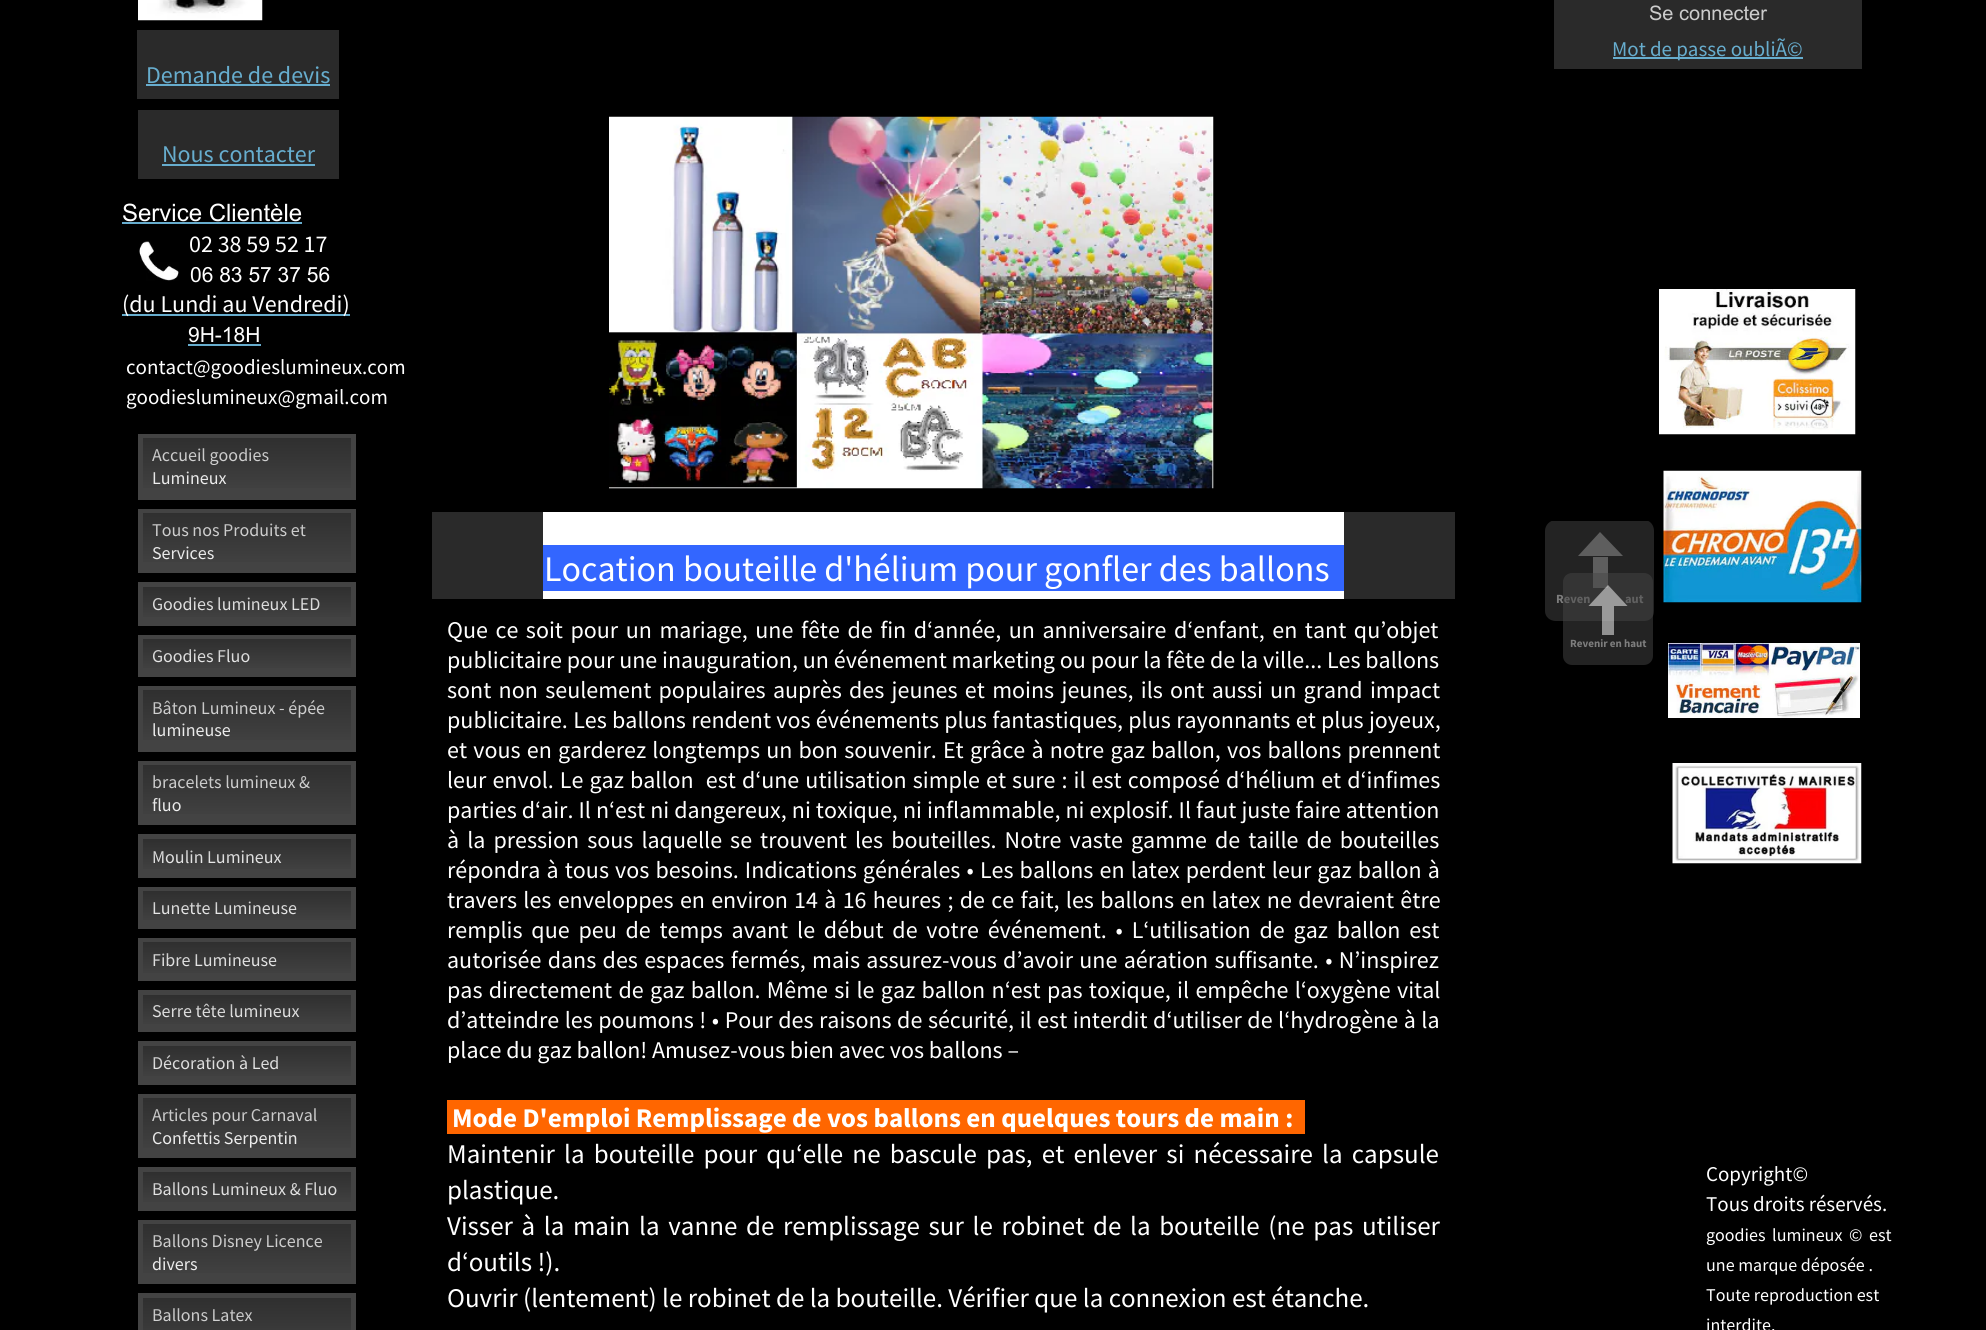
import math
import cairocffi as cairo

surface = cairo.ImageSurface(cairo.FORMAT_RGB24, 1986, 1330)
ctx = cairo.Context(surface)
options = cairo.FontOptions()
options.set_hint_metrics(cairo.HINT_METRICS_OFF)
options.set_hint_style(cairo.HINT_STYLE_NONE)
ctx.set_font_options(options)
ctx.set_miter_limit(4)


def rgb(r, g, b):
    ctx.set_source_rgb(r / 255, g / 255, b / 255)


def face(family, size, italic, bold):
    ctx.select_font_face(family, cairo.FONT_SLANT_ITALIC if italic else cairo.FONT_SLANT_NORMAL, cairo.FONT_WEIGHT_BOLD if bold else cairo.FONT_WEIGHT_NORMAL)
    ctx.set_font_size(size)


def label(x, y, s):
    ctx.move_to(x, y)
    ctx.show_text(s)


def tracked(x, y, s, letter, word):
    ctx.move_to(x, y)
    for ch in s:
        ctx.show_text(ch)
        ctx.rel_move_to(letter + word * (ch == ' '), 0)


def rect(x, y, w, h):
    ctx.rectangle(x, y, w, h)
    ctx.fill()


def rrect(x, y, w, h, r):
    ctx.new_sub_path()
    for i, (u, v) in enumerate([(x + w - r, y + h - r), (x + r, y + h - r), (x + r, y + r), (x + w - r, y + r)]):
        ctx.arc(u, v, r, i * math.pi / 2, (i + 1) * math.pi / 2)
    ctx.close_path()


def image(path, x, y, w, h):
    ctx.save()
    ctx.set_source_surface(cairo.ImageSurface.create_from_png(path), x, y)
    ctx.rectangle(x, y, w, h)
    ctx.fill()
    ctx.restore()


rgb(0, 0, 0)
ctx.paint()
image('image0.png', 138, 0, 125, 21)
rgb(42, 42, 42)
rect(1554, 0, 308, 69)
face('Arial', 20, 0, 0)
rgb(204, 204, 204)
label(1649, 20, 'Se connecter')
rgb(103, 173, 206)
rect(1613, 57, 190, 2)
face('Source Sans Pro', 21, 0, 0)
label(1612, 56, 'Mot de passe oubliÃ©')
rgb(42, 42, 42)
rect(137, 30, 202, 69)
face('Source Sans Pro', 24, 0, 0)
rgb(103, 173, 206)
label(146, 83, 'Demande de devis')
rect(146, 84, 184, 2)
rgb(42, 42, 42)
rect(138, 110, 201, 69)
rgb(103, 173, 206)
label(162, 162, 'Nous contacter')
rect(162, 164, 153, 2)
image('image1.png', 609, 116, 605, 373)
face('Arial', 24, 0, 0)
rgb(255, 255, 255)
label(122, 221, 'Service Clientèle')
rgb(103, 173, 206)
rect(122, 222, 180, 2)
face('Source Sans Pro', 24, 0, 0)
rgb(255, 255, 255)
label(189, 252, '02 38 59 52 17')
face('Arial', 21, 0, 0)
label(190, 282, '06 83 57 37 56')
rgb(103, 173, 206)
rect(122, 314, 228, 2)
face('Source Sans Pro', 24, 0, 0)
rgb(255, 255, 255)
label(122, 312, '(du Lundi au Vendredi)')
face('Arial', 21, 0, 0)
label(188, 342, '9H-18H')
rgb(103, 173, 206)
rect(188, 344, 73, 2)
face('Source Sans Pro', 21, 0, 0)
rgb(255, 255, 255)
label(126, 374, 'contact@goodieslumineux.com')
label(126, 404, 'goodieslumineux@gmail.com')
image('image2.png', 139, 241, 40, 40)
image('image3.png', 1659, 289, 197, 146)
rgb(67, 67, 67)
rect(138, 434, 218, 66)
face('Source Sans Pro', 18, 0, 0)
rgb(255, 255, 255)
label(152, 461, 'Accueil goodies')
label(152, 484, 'Lumineux')
gradient = cairo.LinearGradient(247, 438, 247, 495)
gradient.add_color_stop_rgba(0, 0, 0, 0, 0.3)
gradient.add_color_stop_rgba(1, 0, 0, 0, 0)
ctx.set_source(gradient)
rect(143, 438, 208, 50)
rgb(67, 67, 67)
rect(138, 509, 218, 64)
rgb(255, 255, 255)
label(152, 536, 'Tous nos Produits et')
label(152, 559, 'Services')
gradient = cairo.LinearGradient(247, 513, 247, 569)
gradient.add_color_stop_rgba(0, 0, 0, 0, 0.3)
gradient.add_color_stop_rgba(1, 0, 0, 0, 0)
ctx.set_source(gradient)
rect(143, 513, 208, 49)
rgb(67, 67, 67)
rect(138, 582, 218, 44)
rgb(255, 255, 255)
label(152, 610, 'Goodies lumineux LED')
gradient = cairo.LinearGradient(247, 587, 247, 621)
gradient.add_color_stop_rgba(0, 0, 0, 0, 0.3)
gradient.add_color_stop_rgba(1, 0, 0, 0, 0)
ctx.set_source(gradient)
rect(143, 587, 208, 30)
rgb(67, 67, 67)
rect(138, 635, 218, 42)
rgb(255, 255, 255)
label(152, 662, 'Goodies Fluo')
gradient = cairo.LinearGradient(247, 639, 247, 672)
gradient.add_color_stop_rgba(0, 0, 0, 0, 0.3)
gradient.add_color_stop_rgba(1, 0, 0, 0, 0)
ctx.set_source(gradient)
rect(143, 639, 208, 29)
rgb(67, 67, 67)
rect(138, 686, 218, 66)
rgb(255, 255, 255)
label(152, 714, 'Bâton Lumineux - épée')
label(152, 736, 'lumineuse')
gradient = cairo.LinearGradient(247, 690, 247, 747)
gradient.add_color_stop_rgba(0, 0, 0, 0, 0.3)
gradient.add_color_stop_rgba(1, 0, 0, 0, 0)
ctx.set_source(gradient)
rect(143, 690, 208, 50)
rgb(67, 67, 67)
rect(138, 761, 218, 64)
rgb(255, 255, 255)
label(152, 788, 'bracelets lumineux &')
label(152, 811, 'fluo')
gradient = cairo.LinearGradient(247, 765, 247, 821)
gradient.add_color_stop_rgba(0, 0, 0, 0, 0.3)
gradient.add_color_stop_rgba(1, 0, 0, 0, 0)
ctx.set_source(gradient)
rect(143, 765, 208, 49)
rgb(67, 67, 67)
rect(138, 834, 218, 44)
rgb(255, 255, 255)
label(152, 863, 'Moulin Lumineux')
gradient = cairo.LinearGradient(247, 839, 247, 873)
gradient.add_color_stop_rgba(0, 0, 0, 0, 0.3)
gradient.add_color_stop_rgba(1, 0, 0, 0, 0)
ctx.set_source(gradient)
rect(143, 839, 208, 30)
rgb(67, 67, 67)
rect(138, 887, 218, 42)
rgb(255, 255, 255)
label(152, 914, 'Lunette Lumineuse')
gradient = cairo.LinearGradient(247, 891, 247, 924)
gradient.add_color_stop_rgba(0, 0, 0, 0, 0.3)
gradient.add_color_stop_rgba(1, 0, 0, 0, 0)
ctx.set_source(gradient)
rect(143, 891, 208, 29)
rgb(67, 67, 67)
rect(138, 938, 218, 43)
rgb(255, 255, 255)
label(152, 966, 'Fibre Lumineuse')
gradient = cairo.LinearGradient(247, 942, 247, 977)
gradient.add_color_stop_rgba(0, 0, 0, 0, 0.3)
gradient.add_color_stop_rgba(1, 0, 0, 0, 0)
ctx.set_source(gradient)
rect(143, 942, 208, 31)
rgb(67, 67, 67)
rect(138, 990, 218, 42)
rgb(255, 255, 255)
label(152, 1017, 'Serre tête lumineux')
gradient = cairo.LinearGradient(247, 995, 247, 1028)
gradient.add_color_stop_rgba(0, 0, 0, 0, 0.3)
gradient.add_color_stop_rgba(1, 0, 0, 0, 0)
ctx.set_source(gradient)
rect(143, 995, 208, 29)
rgb(67, 67, 67)
rect(138, 1041, 218, 44)
rgb(255, 255, 255)
label(152, 1069, 'Décoration à Led')
gradient = cairo.LinearGradient(247, 1046, 247, 1080)
gradient.add_color_stop_rgba(0, 0, 0, 0, 0.3)
gradient.add_color_stop_rgba(1, 0, 0, 0, 0)
ctx.set_source(gradient)
rect(143, 1046, 208, 30)
rgb(67, 67, 67)
rect(138, 1094, 218, 64)
rgb(255, 255, 255)
label(152, 1121, 'Articles pour Carnaval')
label(152, 1144, 'Confettis Serpentin')
gradient = cairo.LinearGradient(247, 1098, 247, 1154)
gradient.add_color_stop_rgba(0, 0, 0, 0, 0.3)
gradient.add_color_stop_rgba(1, 0, 0, 0, 0)
ctx.set_source(gradient)
rect(143, 1098, 208, 50)
rgb(67, 67, 67)
rect(138, 1167, 218, 44)
rgb(255, 255, 255)
label(152, 1195, 'Ballons Lumineux & Fluo')
gradient = cairo.LinearGradient(247, 1172, 247, 1206)
gradient.add_color_stop_rgba(0, 0, 0, 0, 0.3)
gradient.add_color_stop_rgba(1, 0, 0, 0, 0)
ctx.set_source(gradient)
rect(143, 1172, 208, 30)
rgb(67, 67, 67)
rect(138, 1220, 218, 64)
rgb(255, 255, 255)
label(152, 1247, 'Ballons Disney Licence')
label(152, 1270, 'divers')
gradient = cairo.LinearGradient(247, 1224, 247, 1280)
gradient.add_color_stop_rgba(0, 0, 0, 0, 0.3)
gradient.add_color_stop_rgba(1, 0, 0, 0, 0)
ctx.set_source(gradient)
rect(143, 1224, 208, 49)
rgb(67, 67, 67)
rect(138, 1293, 218, 37)
rgb(255, 255, 255)
label(152, 1321, 'Ballons Latex')
gradient = cairo.LinearGradient(247, 1298, 247, 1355)
gradient.add_color_stop_rgba(0, 0, 0, 0, 0.3)
gradient.add_color_stop_rgba(1, 0, 0, 0, 0)
ctx.set_source(gradient)
rect(143, 1298, 208, 32)
image('image4.png', 1663, 470, 199, 133)
rgb(42, 42, 42)
rect(432, 512, 1023, 87)
rgb(255, 255, 255)
rect(543, 512, 801, 87)
rgb(51, 102, 255)
rect(543, 545, 801, 46)
face('Source Sans Pro', 36, 0, 0)
rgb(255, 255, 255)
label(544, 581, 'Location bouteille d\'hélium pour gonfler des ballons')
face('Source Sans Pro', 24, 0, 0)
tracked(447, 638, 'Que ce soit pour un mariage, une fête de fin d‘année, un anniversaire d‘enfant, en tant qu’objet', 0, 2.75)
label(447, 668, 'publicitaire pour une inauguration, un événement marketing ou pour la fête de la ville... Les ballons')
tracked(447, 698, 'sont non seulement populaires auprès des jeunes et moins jeunes, ils ont aussi un grand impact', 0, 2.5)
tracked(447, 728, 'publicitaire. Les ballons rendent vos événements plus fantastiques, plus rayonnants et plus joyeux,', 0, 0.5)
tracked(447, 758, 'et vous en garderez longtemps un bon souvenir. Et grâce à notre gaz ballon, vos ballons prennent', 0, 1.4)
tracked(447, 788, 'leur envol. Le gaz ballon  est d‘une utilisation simple et sure : il est composé d‘hélium et d‘infimes', 0, 1.25)
tracked(447, 818, 'parties d‘air. Il n‘est ni dangereux, ni toxique, ni inflammable, ni explosif. Il faut juste faire attention', 0, 0.25)
tracked(447, 848, 'à la pression sous laquelle se trouvent les bouteilles. Notre vaste gamme de taille de bouteilles', 0, 3.25)
tracked(447, 878, 'répondra à tous vos besoins. Indications générales • Les ballons en latex perdent leur gaz ballon à', 0, 1.3)
tracked(447, 908, 'travers les enveloppes en environ 14 à 16 heures ; de ce fait, les ballons en latex ne devraient être', 0, 1.5)
tracked(447, 938, 'remplis que peu de temps avant le début de votre événement. • L‘utilisation de gaz ballon est', 0, 4)
tracked(447, 968, 'autorisée dans des espaces fermés, mais assurez-vous d’avoir une aération suffisante. • N’inspirez', 0, 1.5)
tracked(447, 998, 'pas directement de gaz ballon. Même si le gaz ballon n‘est pas toxique, il empêche l‘oxygène vital', 0, 1.5)
tracked(447, 1028, 'd’atteindre les poumons ! • Pour des raisons de sécurité, il est interdit d‘utiliser de l‘hydrogène à la', 0, 0.75)
label(447, 1058, 'place du gaz ballon! Amusez-vous bien avec vos ballons –')
rgb(255, 102, 0)
rect(447, 1100, 858, 34)
face('Source Sans Pro', 27, 0, 1)
rgb(255, 255, 255)
label(452, 1127, 'Mode D\'emploi Remplissage de vos ballons en quelques tours de main :')
face('Source Sans Pro', 27, 0, 0)
tracked(447, 1163, 'Maintenir la bouteille pour qu‘elle ne bascule pas, et enlever si nécessaire la capsule', 0, 3.75)
label(447, 1199, 'plastique.')
tracked(447, 1235, 'Visser à la main la vanne de remplissage sur le robinet de la bouteille (ne pas utiliser', 0, 3.25)
label(447, 1271, 'd‘outils !).')
label(447, 1307, 'Ouvrir (lentement) le robinet de la bouteille. Vérifier que la connexion est étanche.')
ctx.save()
ctx.rectangle(1545, 521, 110, 100)
ctx.clip()
rgb(35, 35, 35)
ctx.new_path()
ctx.move_to(1556, 520)
ctx.line_to(1644, 520)
ctx.curve_to(1650, 520, 1654, 525, 1654, 531)
ctx.line_to(1654, 611)
ctx.curve_to(1654, 617, 1650, 621, 1644, 621)
ctx.line_to(1556, 621)
ctx.curve_to(1550, 621, 1545, 617, 1545, 611)
ctx.line_to(1545, 531)
ctx.curve_to(1545, 525, 1550, 520, 1556, 520)
ctx.close_path()
ctx.fill()
ctx.restore()
rgb(94, 94, 94)
ctx.new_path()
ctx.move_to(1623, 556)
ctx.line_to(1578, 556)
ctx.line_to(1600, 532)
ctx.close_path()
ctx.fill()
rect(1593, 557, 15, 31)
face('Source Sans Pro', 12.5, 0, 1)
rgb(125, 125, 125)
label(1556, 603, 'Reven')
label(1625, 603, 'aut')
ctx.set_source_rgba(0.275, 0.275, 0.275, 0.5)
rrect(1563, 573, 90, 92, 9)
ctx.fill()
ctx.set_source_rgba(1, 1, 1, 0.5)
ctx.new_path()
ctx.move_to(1627.5, 606)
ctx.line_to(1588.5, 606)
ctx.line_to(1608, 585)
ctx.close_path()
ctx.fill()
rect(1602, 606, 12, 29)
face('Source Sans Pro', 11, 0, 1)
rgb(125, 125, 125)
label(1570, 647, 'Revenir en haut')
image('image5.png', 1668, 643, 192, 75)
image('image6.png', 1672, 763, 190, 101)
face('Source Sans Pro', 21, 0, 0)
rgb(255, 255, 255)
label(1706, 1181, 'Copyright©')
label(1706, 1211, 'Tous droits réservés.')
face('Source Sans Pro', 18, 0, 0)
tracked(1706, 1241, 'goodies lumineux © est', 0, 3)
label(1706, 1271, 'une marque déposée .')
label(1706, 1301, 'Toute reproduction est')
label(1706, 1331, 'interdite.')
surface.write_to_png('render.png')
